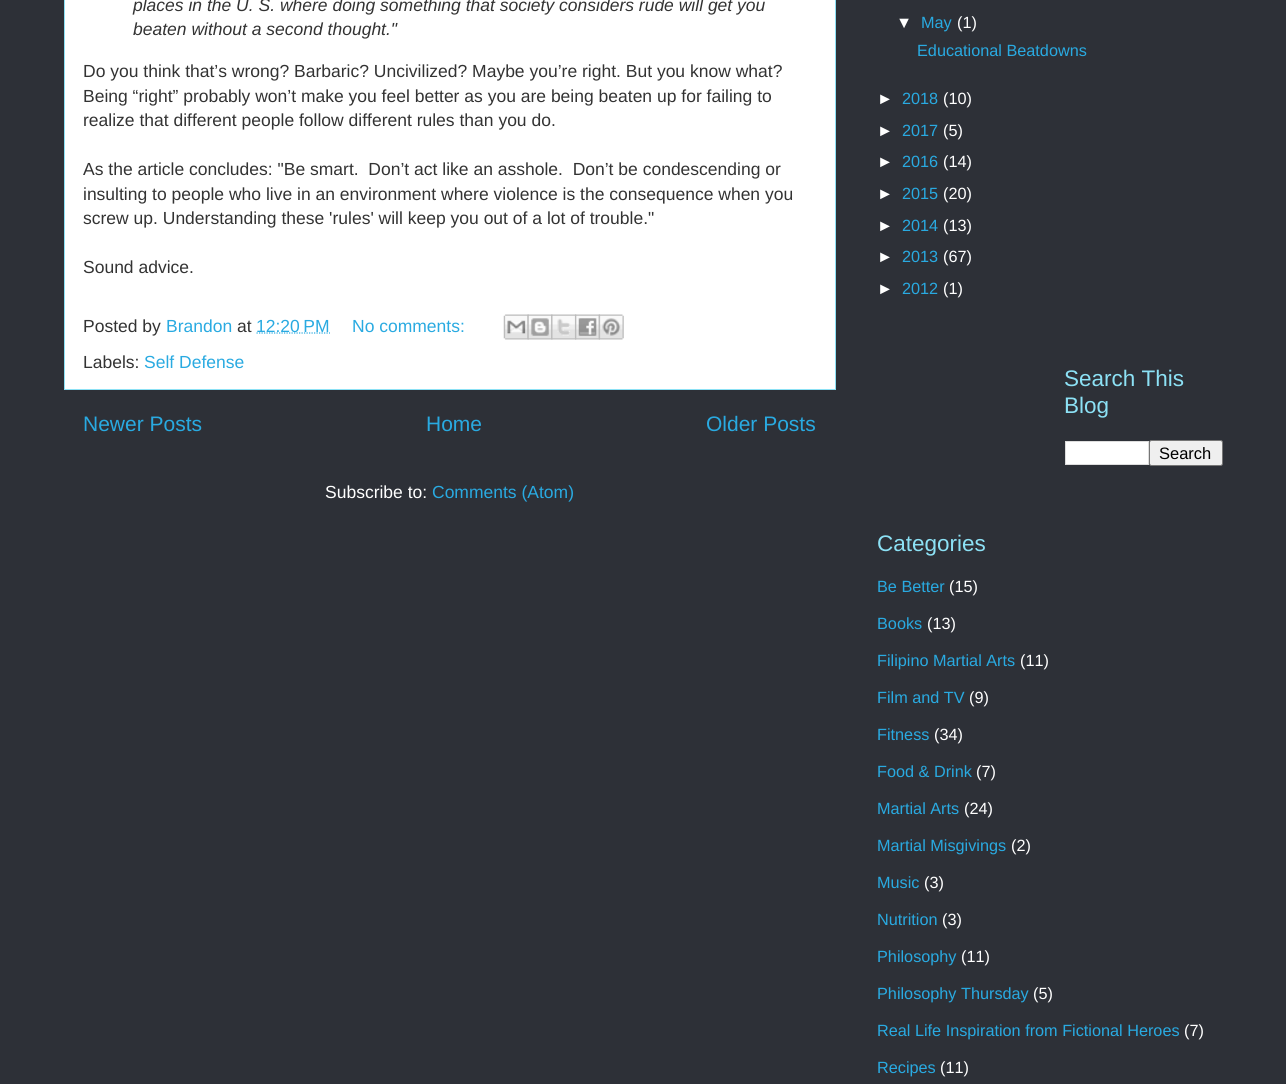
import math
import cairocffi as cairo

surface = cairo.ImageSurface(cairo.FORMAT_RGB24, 1286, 1084)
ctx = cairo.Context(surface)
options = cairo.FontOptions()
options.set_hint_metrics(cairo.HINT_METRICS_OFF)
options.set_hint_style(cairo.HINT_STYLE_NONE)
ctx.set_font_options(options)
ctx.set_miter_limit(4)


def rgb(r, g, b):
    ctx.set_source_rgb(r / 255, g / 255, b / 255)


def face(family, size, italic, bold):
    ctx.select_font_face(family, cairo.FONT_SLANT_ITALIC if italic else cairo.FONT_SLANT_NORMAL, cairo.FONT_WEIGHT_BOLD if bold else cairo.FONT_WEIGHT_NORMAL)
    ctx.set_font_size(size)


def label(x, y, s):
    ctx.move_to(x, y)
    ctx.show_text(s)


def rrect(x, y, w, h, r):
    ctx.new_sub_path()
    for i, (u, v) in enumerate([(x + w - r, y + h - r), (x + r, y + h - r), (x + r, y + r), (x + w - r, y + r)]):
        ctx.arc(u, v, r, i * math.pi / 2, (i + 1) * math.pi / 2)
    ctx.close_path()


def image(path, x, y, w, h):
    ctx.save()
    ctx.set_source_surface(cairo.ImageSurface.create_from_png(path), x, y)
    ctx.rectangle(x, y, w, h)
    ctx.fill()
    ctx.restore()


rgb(45, 48, 55)
ctx.paint()
rgb(255, 255, 255)
ctx.rectangle(64.5, -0.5, 771, 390)
ctx.fill_preserve()
rgb(140, 225, 245)
ctx.set_line_width(1)
ctx.stroke()
face('Liberation Sans', 17.5, 1, 0)
rgb(51, 51, 51)
label(133, 11, 'places in the U. S. where doing something that society considers rude will get you')
label(133, 35, 'beaten without a second thought."')
face('Liberation Sans', 17.5, 0, 0)
label(83, 77, 'Do you think that’s wrong? Barbaric? Uncivilized? Maybe you’re right. But you know what?')
label(83, 102, 'Being “right” probably won’t make you feel better as you are being beaten up for failing to')
label(83, 126, 'realize that different people follow different rules than you do.')
label(83, 175, 'As the article concludes: "Be smart.  Don’t act like an asshole.  Don’t be condescending or')
label(83, 200, 'insulting to people who live in an environment where violence is the consequence when you')
label(83, 224, 'screw up. Understanding these \'rules\' will keep you out of a lot of trouble."')
label(83, 273, 'Sound advice.')
label(83, 332, 'Posted by')
rgb(41, 170, 225)
label(166, 332, 'Brandon')
rgb(51, 51, 51)
label(237, 332, 'at')
ctx.new_path()
ctx.move_to(256.5, 333)
ctx.line_to(330, 333)
rgb(41, 170, 225)
ctx.set_line_width(1.2)
ctx.set_dash([1.25, 1.25])
ctx.stroke()
label(256, 332, '12:20 PM')
label(352, 332, 'No comments:')
image('image0.png', 503, 314, 26, 26)
image('image1.png', 527, 314, 26, 26)
image('image2.png', 551, 314, 26, 26)
image('image3.png', 575, 314, 25, 26)
image('image4.png', 598, 314, 26, 26)
rgb(51, 51, 51)
label(83, 368, 'Labels:')
rgb(41, 170, 225)
label(144, 368, 'Self Defense')
face('Liberation Sans', 21, 0, 0)
label(83, 431, 'Newer Posts')
label(426, 431, 'Home')
label(706, 431, 'Older Posts')
face('Liberation Sans', 17.5, 0, 0)
rgb(255, 255, 255)
label(325, 498, 'Subscribe to:')
rgb(41, 170, 225)
label(432, 498, 'Comments (Atom)')
face('Liberation Sans', 16.25, 0, 0)
rgb(255, 255, 255)
label(896, 28, '▼')
rgb(41, 170, 225)
label(921, 28, 'May')
rgb(255, 255, 255)
label(957, 28, '(1)')
rgb(41, 170, 225)
label(917, 56, 'Educational Beatdowns')
rgb(255, 255, 255)
label(877, 104, '►')
rgb(41, 170, 225)
label(902, 104, '2018')
rgb(255, 255, 255)
label(943, 104, '(10)')
label(877, 136, '►')
rgb(41, 170, 225)
label(902, 136, '2017')
rgb(255, 255, 255)
label(943, 136, '(5)')
label(877, 167, '►')
rgb(41, 170, 225)
label(902, 167, '2016')
rgb(255, 255, 255)
label(943, 167, '(14)')
label(877, 199, '►')
rgb(41, 170, 225)
label(902, 199, '2015')
rgb(255, 255, 255)
label(943, 199, '(20)')
label(877, 231, '►')
rgb(41, 170, 225)
label(902, 231, '2014')
rgb(255, 255, 255)
label(943, 231, '(13)')
label(877, 262, '►')
rgb(41, 170, 225)
label(902, 262, '2013')
rgb(255, 255, 255)
label(943, 262, '(67)')
label(877, 294, '►')
rgb(41, 170, 225)
label(902, 294, '2012')
rgb(255, 255, 255)
label(943, 294, '(1)')
face('Liberation Sans', 22.5, 0, 0)
rgb(140, 225, 245)
label(1064, 386, 'Search This')
label(1064, 413, 'Blog')
rgb(255, 255, 255)
ctx.rectangle(1065.5, 441.5, 83, 23)
ctx.fill_preserve()
rgb(221, 221, 221)
ctx.set_line_width(1)
ctx.set_dash([])
ctx.stroke()
rgb(239, 239, 239)
rrect(1149.5, 440.5, 73, 25, 2)
ctx.fill_preserve()
rgb(118, 118, 118)
ctx.stroke()
face('Liberation Sans', 16.5, 0, 0)
rgb(0, 0, 0)
label(1159, 459, 'Search')
face('Liberation Sans', 22.5, 0, 0)
rgb(140, 225, 245)
label(877, 551, 'Categories')
face('Liberation Sans', 16.25, 0, 0)
rgb(41, 170, 225)
label(877, 592, 'Be Better')
rgb(255, 255, 255)
label(949, 592, '(15)')
rgb(41, 170, 225)
label(877, 629, 'Books')
rgb(255, 255, 255)
label(927, 629, '(13)')
rgb(41, 170, 225)
label(877, 666, 'Filipino Martial Arts')
rgb(255, 255, 255)
label(1020, 666, '(11)')
rgb(41, 170, 225)
label(877, 703, 'Film and TV')
rgb(255, 255, 255)
label(969, 703, '(9)')
rgb(41, 170, 225)
label(877, 740, 'Fitness')
rgb(255, 255, 255)
label(934, 740, '(34)')
rgb(41, 170, 225)
label(877, 777, 'Food & Drink')
rgb(255, 255, 255)
label(976, 777, '(7)')
rgb(41, 170, 225)
label(877, 814, 'Martial Arts')
rgb(255, 255, 255)
label(964, 814, '(24)')
rgb(41, 170, 225)
label(877, 851, 'Martial Misgivings')
rgb(255, 255, 255)
label(1011, 851, '(2)')
rgb(41, 170, 225)
label(877, 888, 'Music')
rgb(255, 255, 255)
label(924, 888, '(3)')
rgb(41, 170, 225)
label(877, 925, 'Nutrition')
rgb(255, 255, 255)
label(942, 925, '(3)')
rgb(41, 170, 225)
label(877, 962, 'Philosophy')
rgb(255, 255, 255)
label(961, 962, '(11)')
rgb(41, 170, 225)
label(877, 999, 'Philosophy Thursday')
rgb(255, 255, 255)
label(1033, 999, '(5)')
rgb(41, 170, 225)
label(877, 1036, 'Real Life Inspiration from Fictional Heroes')
rgb(255, 255, 255)
label(1184, 1036, '(7)')
rgb(41, 170, 225)
label(877, 1073, 'Recipes')
rgb(255, 255, 255)
label(940, 1073, '(11)')
surface.write_to_png('render.png')
